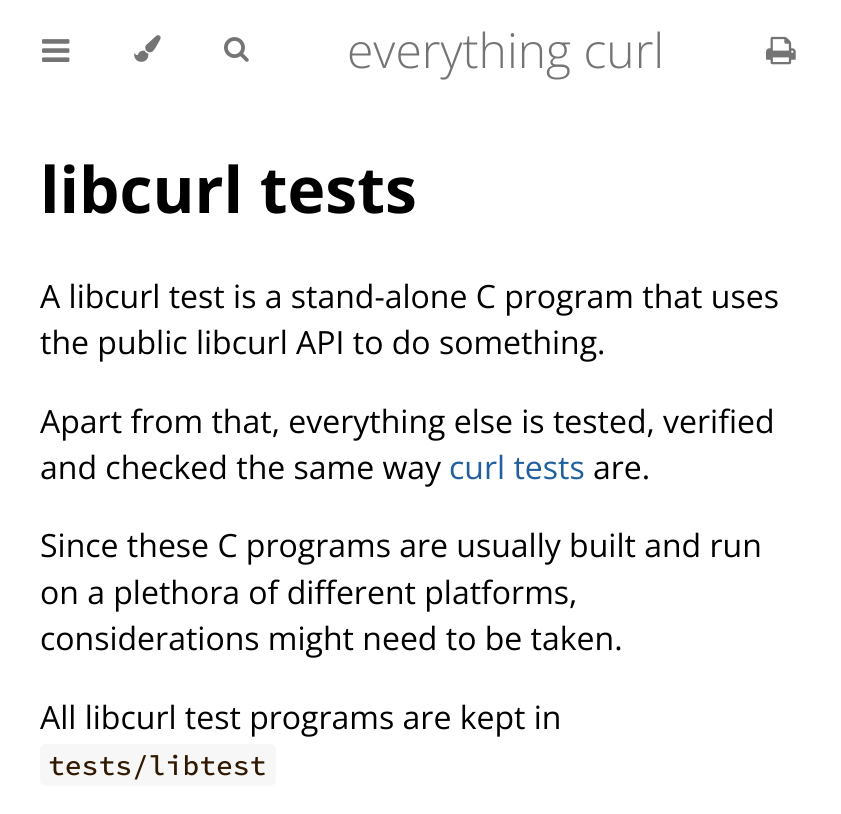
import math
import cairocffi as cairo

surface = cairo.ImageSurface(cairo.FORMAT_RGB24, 841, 814)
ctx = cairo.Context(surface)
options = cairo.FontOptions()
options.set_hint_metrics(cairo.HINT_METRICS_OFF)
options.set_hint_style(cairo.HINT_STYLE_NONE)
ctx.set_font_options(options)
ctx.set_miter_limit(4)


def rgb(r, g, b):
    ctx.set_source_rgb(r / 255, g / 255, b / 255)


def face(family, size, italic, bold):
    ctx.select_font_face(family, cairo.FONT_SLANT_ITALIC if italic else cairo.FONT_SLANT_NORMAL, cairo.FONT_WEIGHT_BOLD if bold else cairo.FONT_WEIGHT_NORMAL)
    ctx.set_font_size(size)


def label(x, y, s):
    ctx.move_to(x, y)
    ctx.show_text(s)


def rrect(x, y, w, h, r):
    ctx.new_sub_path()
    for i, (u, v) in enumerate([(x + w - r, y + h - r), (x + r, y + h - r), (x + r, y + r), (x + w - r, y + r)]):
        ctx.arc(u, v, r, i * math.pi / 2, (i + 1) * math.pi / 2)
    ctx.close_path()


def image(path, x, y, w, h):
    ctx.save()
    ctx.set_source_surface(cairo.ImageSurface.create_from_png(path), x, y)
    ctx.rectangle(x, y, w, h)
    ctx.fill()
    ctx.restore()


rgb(255, 255, 255)
ctx.paint()
image('image0.png', 42, 39, 28, 23)
image('image1.png', 134, 35, 27, 27)
image('image2.png', 224, 37, 25, 25)
face('Open Sans Light', 48, 0, 0)
rgb(116, 116, 116)
label(347, 68, 'everything curl')
image('image3.png', 766, 36, 30, 29)
face('Open Sans', 64, 0, 1)
rgb(0, 0, 0)
label(40, 213, 'libcurl tests')
face('Open Sans', 32, 0, 0)
label(40, 308, 'A libcurl test is a stand-alone C program that uses')
label(40, 354, 'the public libcurl API to do something.')
label(40, 433, 'Apart from that, everything else is tested, verified')
label(40, 479, 'and checked the same way')
rgb(32, 96, 159)
label(449, 479, 'curl tests')
rgb(0, 0, 0)
label(593, 479, 'are.')
label(40, 557, 'Since these C programs are usually built and run')
label(40, 604, 'on a plethora of different platforms,')
label(40, 650, 'considerations might need to be taken.')
label(40, 729, 'All libcurl test programs are kept in')
rgb(246, 247, 246)
rrect(40, 744, 236, 42, 6)
ctx.fill()
face('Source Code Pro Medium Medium', 28, 0, 0)
rgb(48, 25, 0)
label(48, 775, 'tests/libtest')
surface.write_to_png('render.png')
